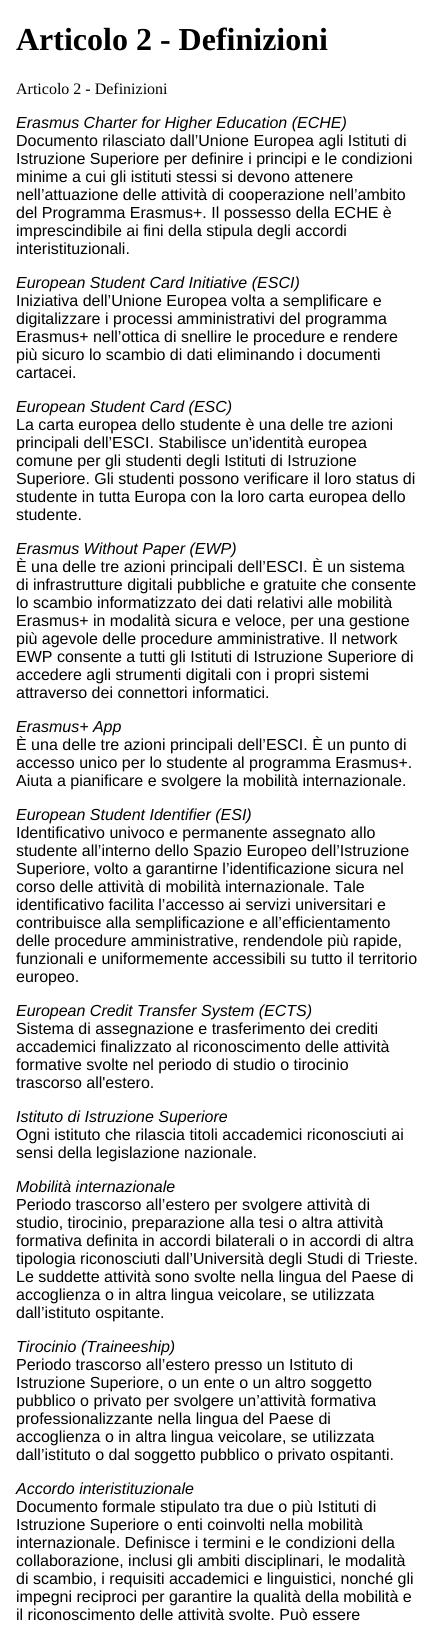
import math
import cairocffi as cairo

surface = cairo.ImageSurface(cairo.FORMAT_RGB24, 434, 1626)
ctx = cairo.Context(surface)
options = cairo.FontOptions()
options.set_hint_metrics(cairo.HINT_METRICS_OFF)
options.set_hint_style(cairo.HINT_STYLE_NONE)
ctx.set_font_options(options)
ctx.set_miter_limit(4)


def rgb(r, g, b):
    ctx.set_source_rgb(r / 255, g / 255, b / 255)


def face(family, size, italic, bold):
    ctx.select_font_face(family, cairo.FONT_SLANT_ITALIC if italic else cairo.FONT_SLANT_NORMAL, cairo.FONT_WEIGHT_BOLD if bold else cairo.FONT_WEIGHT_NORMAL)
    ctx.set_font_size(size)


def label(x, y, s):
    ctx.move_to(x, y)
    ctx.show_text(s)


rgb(255, 255, 255)
ctx.paint()
face('Liberation Serif', 32, 0, 1)
rgb(0, 0, 0)
label(16, 50, 'Articolo 2 - Definizioni')
face('Liberation Serif', 16, 0, 0)
label(16, 94, 'Articolo 2 - Definizioni')
face('Liberation Sans', 16, 1, 0)
label(16, 128, 'Erasmus Charter for Higher Education (ECHE)')
face('Liberation Sans', 16, 0, 0)
label(16, 146, 'Documento rilasciato dall’Unione Europea agli Istituti di')
label(16, 164, 'Istruzione Superiore per definire i principi e le condizioni')
label(16, 182, 'minime a cui gli istituti stessi si devono attenere')
label(16, 200, 'nell’attuazione delle attività di cooperazione nell’ambito')
label(16, 218, 'del Programma Erasmus+. Il possesso della ECHE è')
label(16, 236, 'imprescindibile ai fini della stipula degli accordi')
label(16, 254, 'interistituzionali.')
face('Liberation Sans', 16, 1, 0)
label(16, 288, 'European Student Card Initiative (ESCI)')
face('Liberation Sans', 16, 0, 0)
label(16, 306, 'Iniziativa dell’Unione Europea volta a semplificare e')
label(16, 324, 'digitalizzare i processi amministrativi del programma')
label(16, 342, 'Erasmus+ nell’ottica di snellire le procedure e rendere')
label(16, 360, 'più sicuro lo scambio di dati eliminando i documenti')
label(16, 378, 'cartacei.')
face('Liberation Sans', 16, 1, 0)
label(16, 412, 'European Student Card (ESC)')
face('Liberation Sans', 16, 0, 0)
label(16, 430, 'La carta europea dello studente è una delle tre azioni')
label(16, 448, 'principali dell’ESCI. Stabilisce un\'identità europea')
label(16, 466, 'comune per gli studenti degli Istituti di Istruzione')
label(16, 484, 'Superiore. Gli studenti possono verificare il loro status di')
label(16, 502, 'studente in tutta Europa con la loro carta europea dello')
label(16, 520, 'studente.')
face('Liberation Sans', 16, 1, 0)
label(16, 554, 'Erasmus Without Paper (EWP)')
face('Liberation Sans', 16, 0, 0)
label(16, 572, 'È una delle tre azioni principali dell’ESCI. È un sistema')
label(16, 590, 'di infrastrutture digitali pubbliche e gratuite che consente')
label(16, 608, 'lo scambio informatizzato dei dati relativi alle mobilità')
label(16, 626, 'Erasmus+ in modalità sicura e veloce, per una gestione')
label(16, 644, 'più agevole delle procedure amministrative. Il network')
label(16, 662, 'EWP consente a tutti gli Istituti di Istruzione Superiore di')
label(16, 680, 'accedere agli strumenti digitali con i propri sistemi')
label(16, 698, 'attraverso dei connettori informatici.')
face('Liberation Sans', 16, 1, 0)
label(16, 732, 'Erasmus+ App')
face('Liberation Sans', 16, 0, 0)
label(16, 750, 'È una delle tre azioni principali dell’ESCI. È un punto di')
label(16, 768, 'accesso unico per lo studente al programma Erasmus+.')
label(16, 786, 'Aiuta a pianificare e svolgere la mobilità internazionale.')
face('Liberation Sans', 16, 1, 0)
label(16, 820, 'European Student Identifier (ESI)')
face('Liberation Sans', 16, 0, 0)
label(16, 838, 'Identificativo univoco e permanente assegnato allo')
label(16, 856, 'studente all’interno dello Spazio Europeo dell’Istruzione')
label(16, 874, 'Superiore, volto a garantirne l’identificazione sicura nel')
label(16, 892, 'corso delle attività di mobilità internazionale. Tale')
label(16, 910, 'identificativo facilita l’accesso ai servizi universitari e')
label(16, 928, 'contribuisce alla semplificazione e all’efficientamento')
label(16, 946, 'delle procedure amministrative, rendendole più rapide,')
label(16, 964, 'funzionali e uniformemente accessibili su tutto il territorio')
label(16, 982, 'europeo.')
face('Liberation Sans', 16, 1, 0)
label(16, 1016, 'European Credit Transfer System (ECTS)')
face('Liberation Sans', 16, 0, 0)
label(16, 1034, 'Sistema di assegnazione e trasferimento dei crediti')
label(16, 1052, 'accademici finalizzato al riconoscimento delle attività')
label(16, 1070, 'formative svolte nel periodo di studio o tirocinio')
label(16, 1088, 'trascorso all\'estero.')
face('Liberation Sans', 16, 1, 0)
label(16, 1122, 'Istituto di Istruzione Superiore')
face('Liberation Sans', 16, 0, 0)
label(16, 1140, 'Ogni istituto che rilascia titoli accademici riconosciuti ai')
label(16, 1158, 'sensi della legislazione nazionale.')
face('Liberation Sans', 16, 1, 0)
label(16, 1192, 'Mobilità internazionale')
face('Liberation Sans', 16, 0, 0)
label(16, 1210, 'Periodo trascorso all’estero per svolgere attività di')
label(16, 1228, 'studio, tirocinio, preparazione alla tesi o altra attività')
label(16, 1246, 'formativa definita in accordi bilaterali o in accordi di altra')
label(16, 1264, 'tipologia riconosciuti dall’Università degli Studi di Trieste.')
label(16, 1282, 'Le suddette attività sono svolte nella lingua del Paese di')
label(16, 1300, 'accoglienza o in altra lingua veicolare, se utilizzata')
label(16, 1318, 'dall’istituto ospitante.')
face('Liberation Sans', 16, 1, 0)
label(16, 1352, 'Tirocinio (Traineeship)')
face('Liberation Sans', 16, 0, 0)
label(16, 1370, 'Periodo trascorso all’estero presso un Istituto di')
label(16, 1388, 'Istruzione Superiore, o un ente o un altro soggetto')
label(16, 1406, 'pubblico o privato per svolgere un’attività formativa')
label(16, 1424, 'professionalizzante nella lingua del Paese di')
label(16, 1442, 'accoglienza o in altra lingua veicolare, se utilizzata')
label(16, 1460, 'dall’istituto o dal soggetto pubblico o privato ospitanti.')
face('Liberation Sans', 16, 1, 0)
label(16, 1494, 'Accordo interistituzionale')
face('Liberation Sans', 16, 0, 0)
label(16, 1512, 'Documento formale stipulato tra due o più Istituti di')
label(16, 1530, 'Istruzione Superiore o enti coinvolti nella mobilità')
label(16, 1548, 'internazionale. Definisce i termini e le condizioni della')
label(16, 1566, 'collaborazione, inclusi gli ambiti disciplinari, le modalità')
label(16, 1584, 'di scambio, i requisiti accademici e linguistici, nonché gli')
label(16, 1602, 'impegni reciproci per garantire la qualità della mobilità e')
label(16, 1620, 'il riconoscimento delle attività svolte. Può essere')
surface.write_to_png('render.png')
